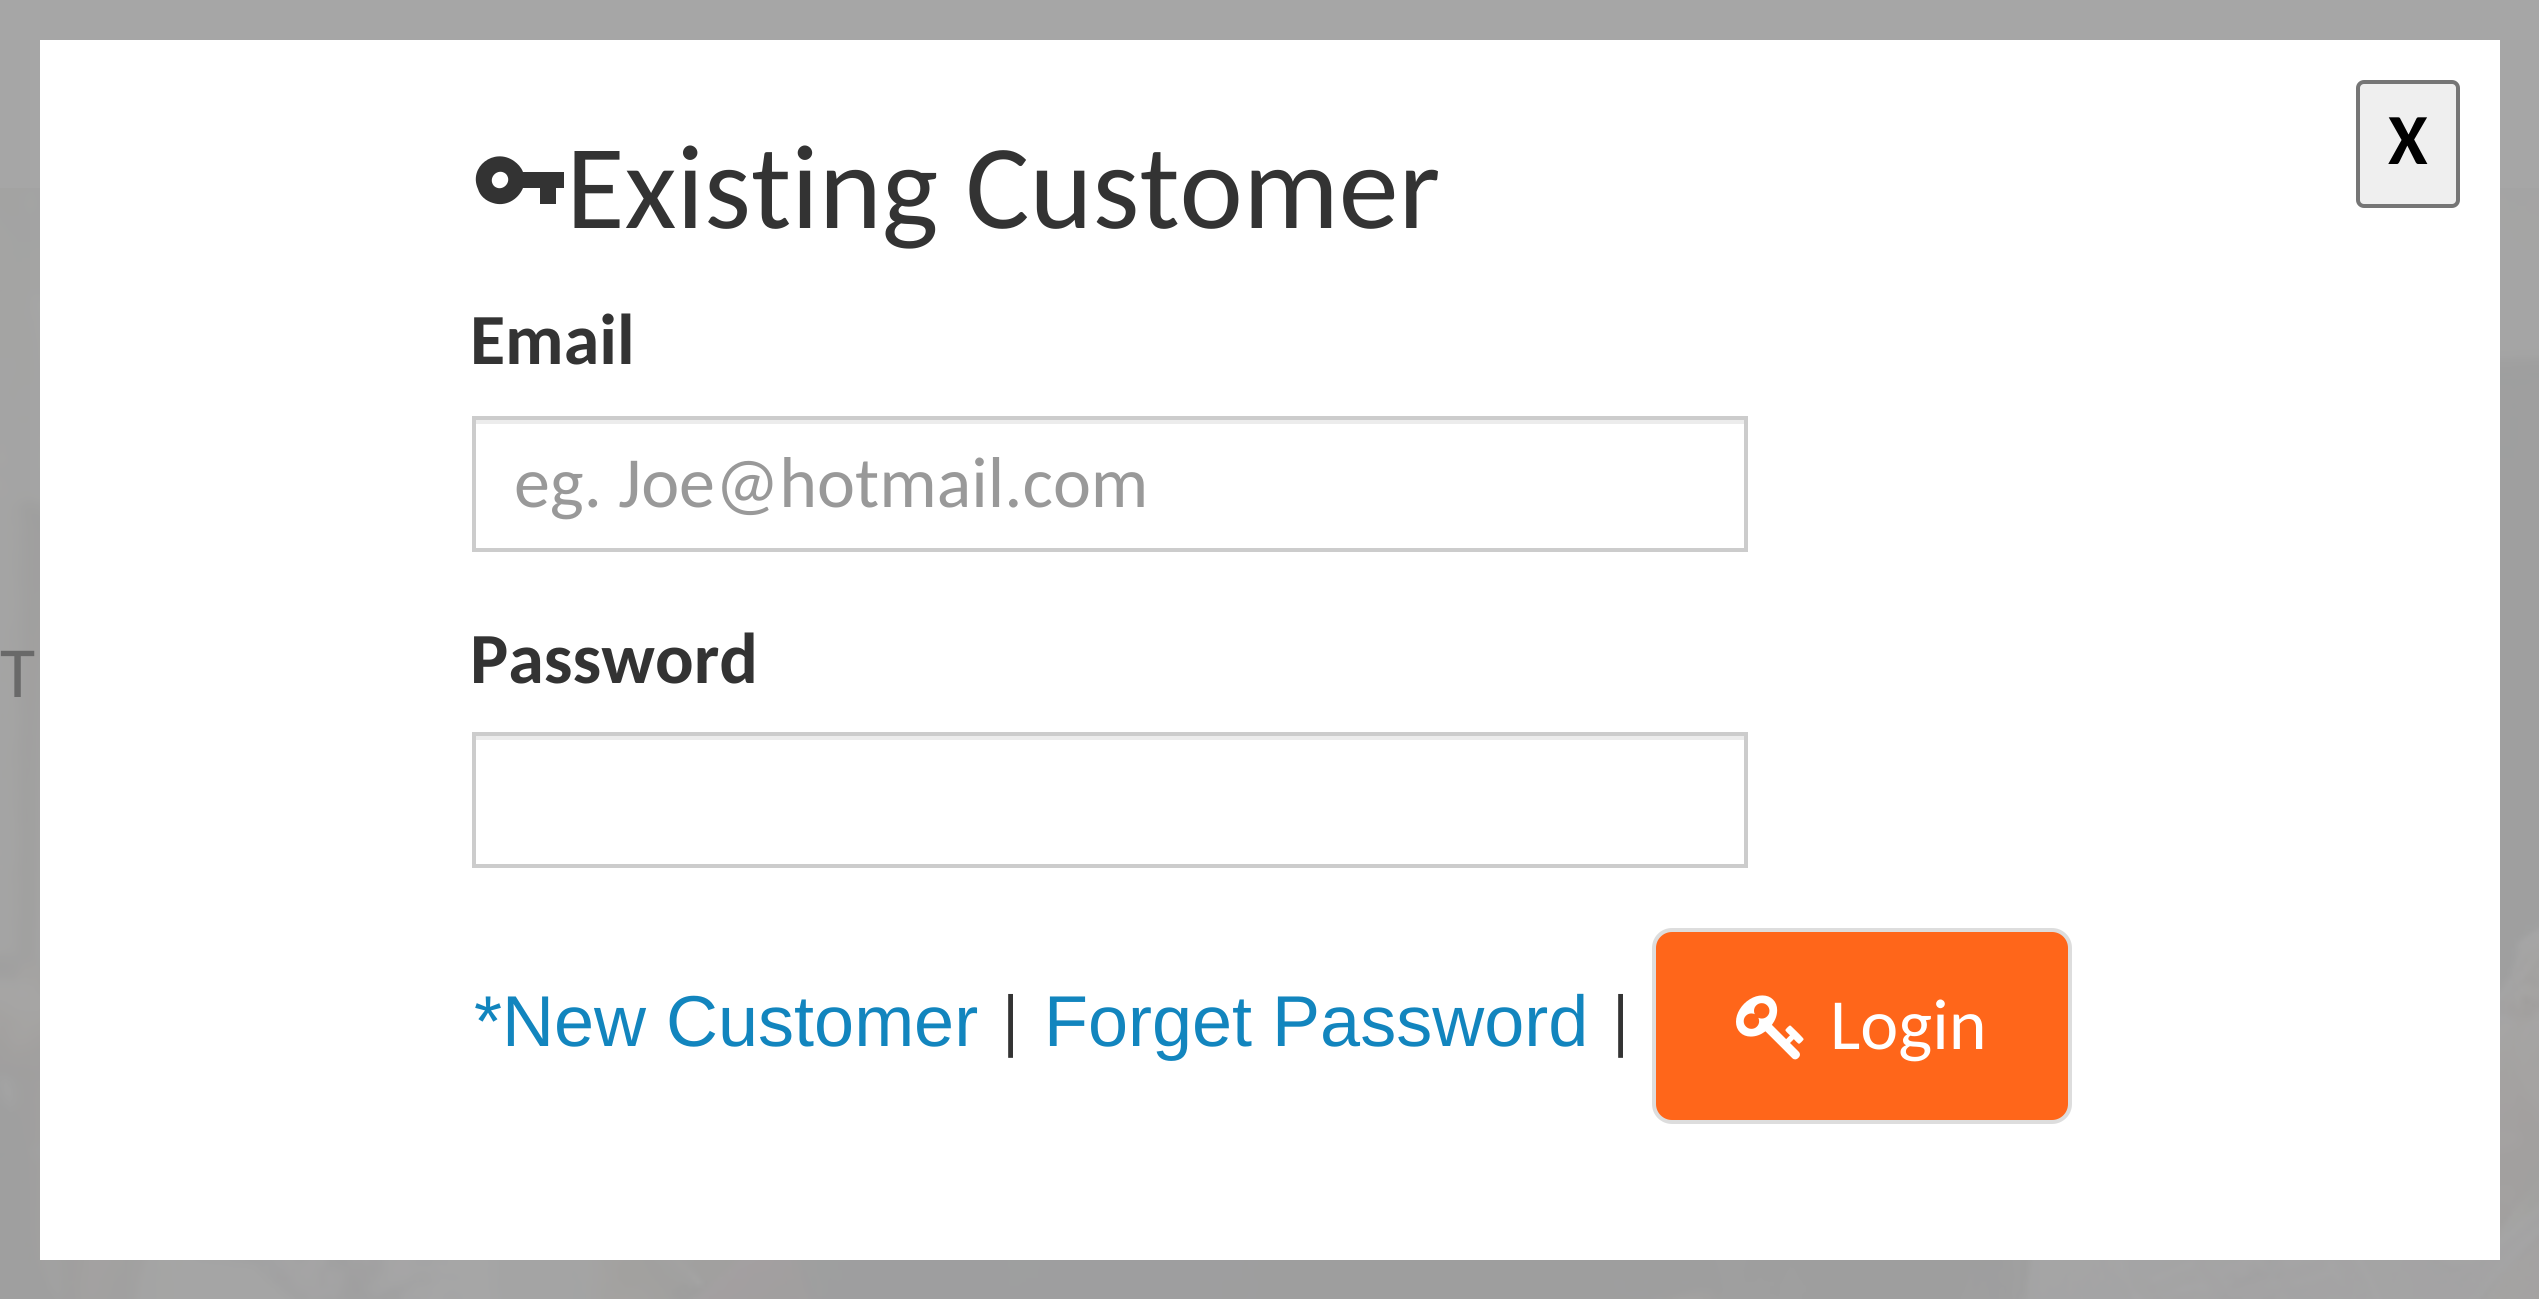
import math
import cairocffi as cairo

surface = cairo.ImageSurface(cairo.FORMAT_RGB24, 2539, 1299)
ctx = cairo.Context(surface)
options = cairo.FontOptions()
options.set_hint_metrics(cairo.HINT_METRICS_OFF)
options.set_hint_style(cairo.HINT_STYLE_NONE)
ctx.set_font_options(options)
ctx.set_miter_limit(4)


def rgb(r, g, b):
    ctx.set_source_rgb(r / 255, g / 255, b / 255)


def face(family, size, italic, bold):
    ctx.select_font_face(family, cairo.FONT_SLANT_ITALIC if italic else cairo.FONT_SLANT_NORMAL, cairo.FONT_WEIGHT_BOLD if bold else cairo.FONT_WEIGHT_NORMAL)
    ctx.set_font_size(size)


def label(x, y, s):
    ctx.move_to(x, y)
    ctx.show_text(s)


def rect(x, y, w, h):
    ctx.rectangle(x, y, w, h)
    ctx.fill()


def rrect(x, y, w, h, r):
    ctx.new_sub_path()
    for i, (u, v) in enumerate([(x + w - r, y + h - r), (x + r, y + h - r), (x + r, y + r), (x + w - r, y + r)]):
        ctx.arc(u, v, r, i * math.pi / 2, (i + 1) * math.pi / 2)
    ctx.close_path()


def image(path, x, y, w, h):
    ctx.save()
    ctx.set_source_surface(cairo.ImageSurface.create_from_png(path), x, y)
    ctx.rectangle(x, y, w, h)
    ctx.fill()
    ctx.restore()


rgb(166, 166, 166)
ctx.paint()
image('image0.png', 0, 188, 2539, 1111)
face('Carlito', 72, 0, 0)
rgb(105, 105, 105)
label(0, 697, 'T')
rgb(255, 255, 255)
rect(40, 40, 2460, 1220)
rgb(51, 51, 51)
ctx.new_path()
ctx.move_to(494, 186)
ctx.curve_to(502, 193, 513, 182, 506, 174)
ctx.curve_to(498, 167, 487, 178, 494, 186)
ctx.close_path()
ctx.move_to(523, 172)
ctx.line_to(564, 172)
ctx.line_to(564, 188)
ctx.line_to(556, 188)
ctx.line_to(556, 204)
ctx.line_to(540, 204)
ctx.line_to(540, 188)
ctx.line_to(523, 188)
ctx.curve_to(518, 200, 505, 207, 493, 203)
ctx.curve_to(486, 201, 480, 196, 478, 189)
ctx.curve_to(468, 167, 494, 147, 514, 161)
ctx.curve_to(518, 164, 521, 167, 523, 172)
ctx.close_path()
ctx.fill()
face('Carlito', 120, 0, 0)
label(566, 228, 'Existing Customer')
face('Carlito', 72, 0, 1)
label(470, 364, 'Email')
rgb(236, 236, 236)
rect(476, 420, 1268, 4)
ctx.rectangle(474, 418, 1272, 132)
rgb(204, 204, 204)
ctx.set_line_width(4)
ctx.stroke()
face('Carlito', 72, 0, 0)
rgb(153, 153, 153)
label(514, 507, 'eg. Joe@hotmail.com')
face('Carlito', 72, 0, 1)
rgb(51, 51, 51)
label(470, 683, 'Password')
rgb(236, 236, 236)
rect(476, 736, 1268, 4)
ctx.rectangle(474, 734, 1272, 132)
rgb(204, 204, 204)
ctx.stroke()
face('Liberation Sans', 72, 0, 0)
rgb(18, 133, 190)
label(474, 1046, '*New Customer')
face('Carlito', 72, 0, 0)
rgb(51, 51, 51)
label(994, 1046, '|')
face('Liberation Sans', 72, 0, 0)
rgb(18, 133, 190)
label(1044, 1046, 'Forget Password')
face('Carlito', 72, 0, 0)
rgb(51, 51, 51)
label(1604, 1046, '|')
rgb(255, 102, 26)
rrect(1654, 930, 416, 192, 18)
ctx.fill_preserve()
rgb(221, 221, 221)
ctx.stroke()
image('image1.png', 1736, 995, 68, 65)
rgb(255, 255, 255)
label(1830, 1049, 'Login')
rgb(239, 239, 239)
rrect(2358, 82, 100, 124, 6)
ctx.fill_preserve()
rgb(118, 118, 118)
ctx.stroke()
face('Carlito', 72, 0, 1)
rgb(0, 0, 0)
label(2388, 164, 'X')
surface.write_to_png('render.png')
